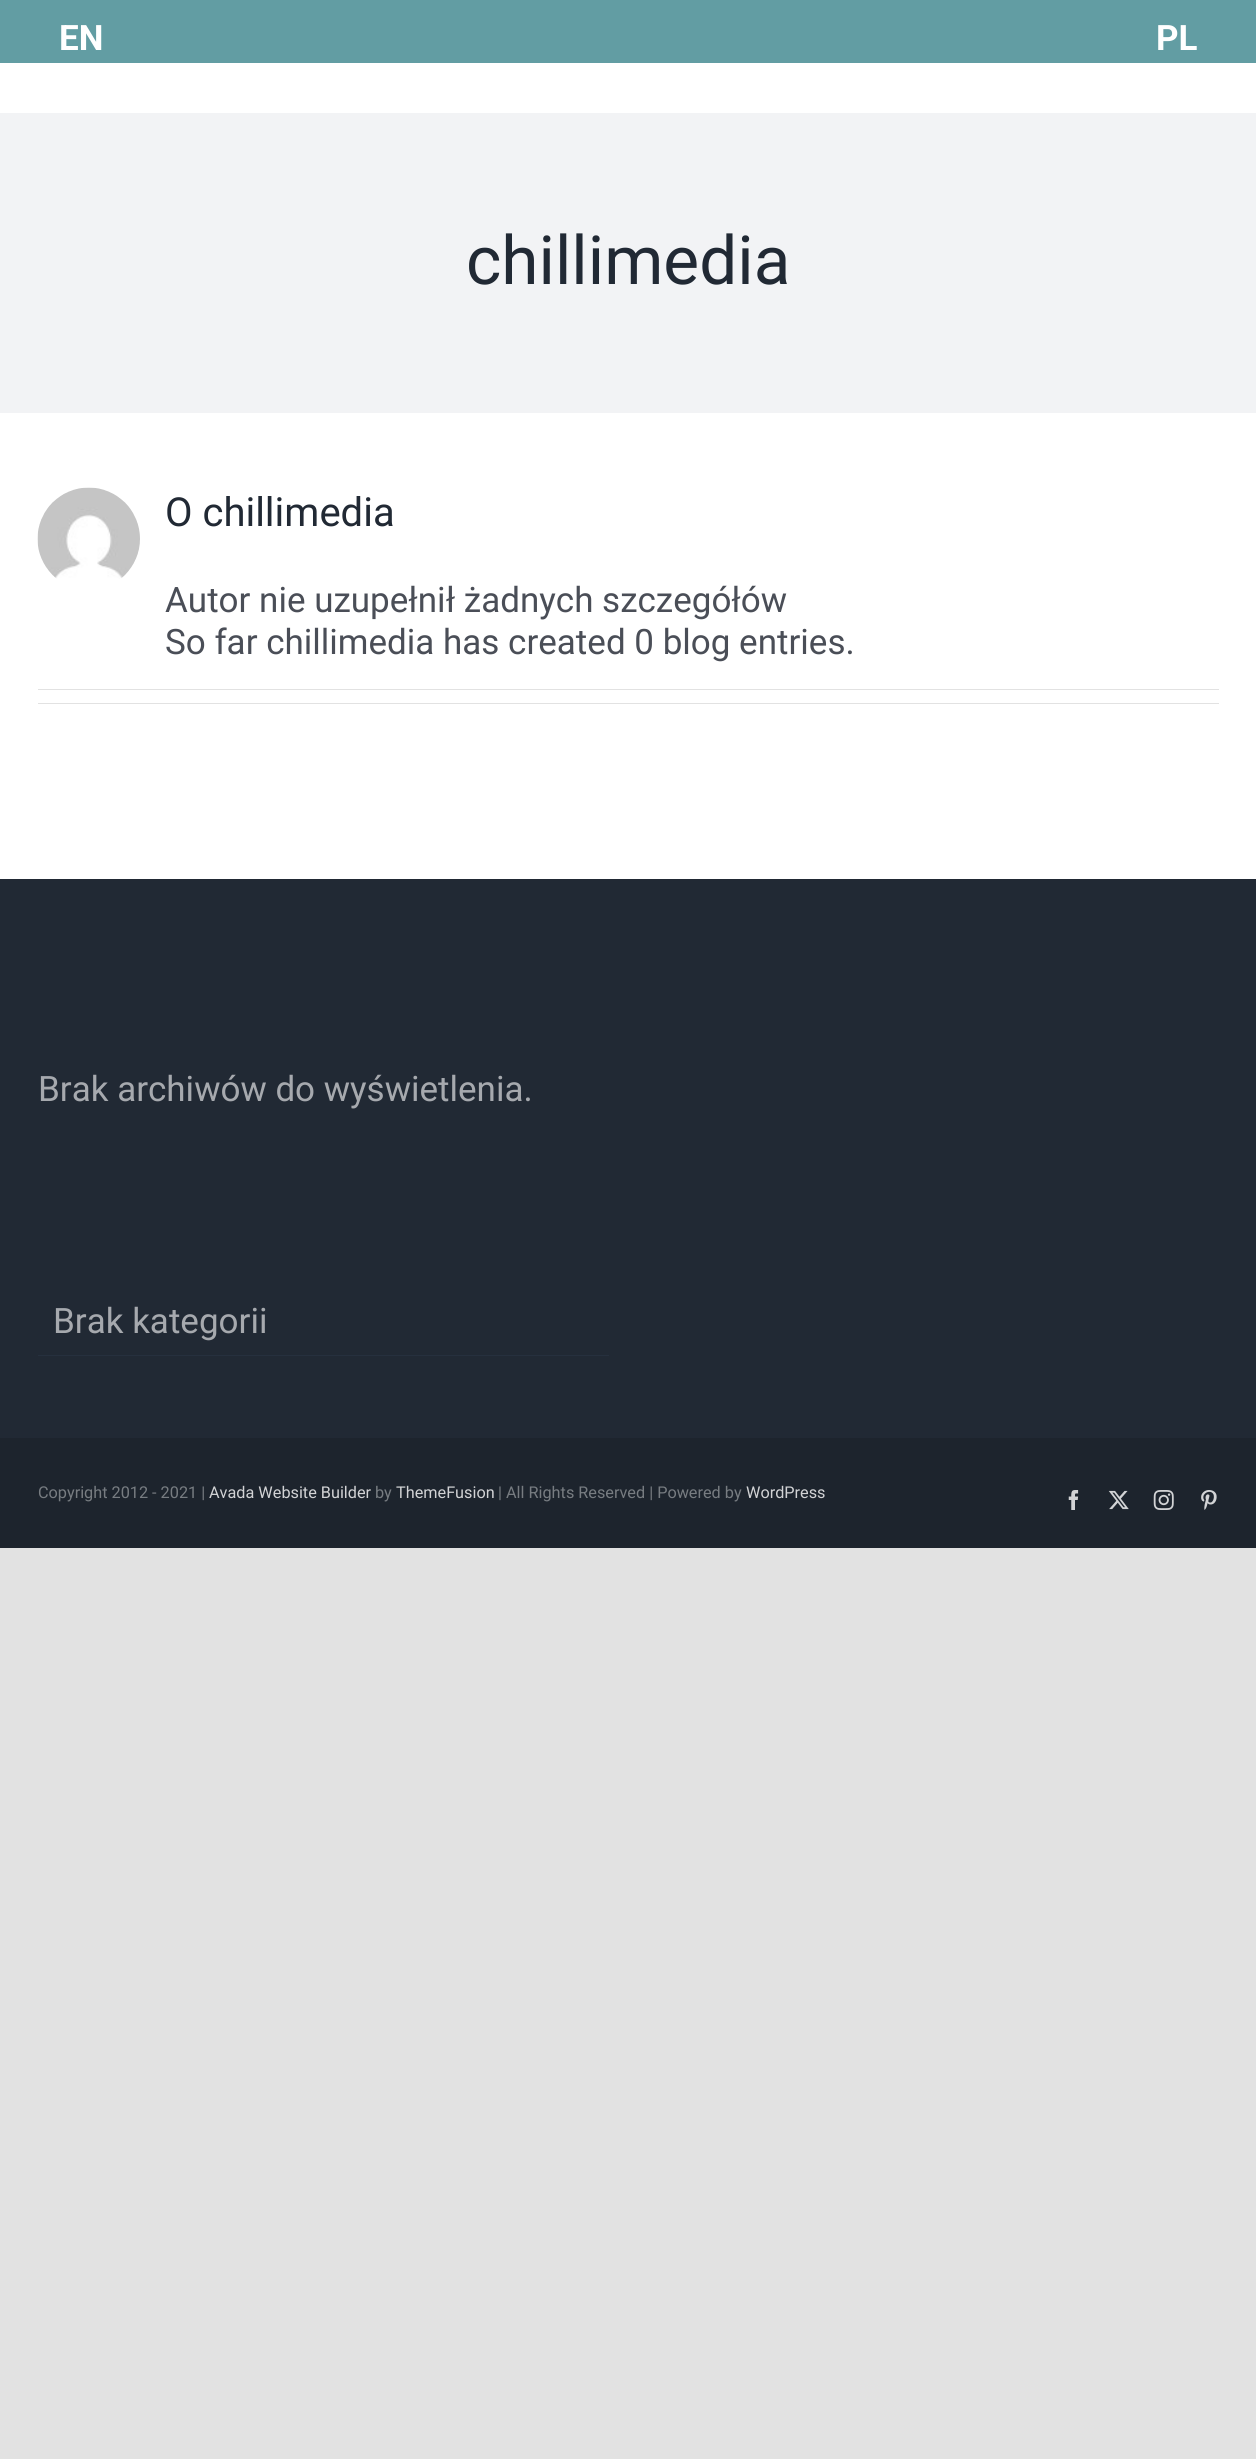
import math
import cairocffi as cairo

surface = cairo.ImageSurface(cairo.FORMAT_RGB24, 1256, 2459)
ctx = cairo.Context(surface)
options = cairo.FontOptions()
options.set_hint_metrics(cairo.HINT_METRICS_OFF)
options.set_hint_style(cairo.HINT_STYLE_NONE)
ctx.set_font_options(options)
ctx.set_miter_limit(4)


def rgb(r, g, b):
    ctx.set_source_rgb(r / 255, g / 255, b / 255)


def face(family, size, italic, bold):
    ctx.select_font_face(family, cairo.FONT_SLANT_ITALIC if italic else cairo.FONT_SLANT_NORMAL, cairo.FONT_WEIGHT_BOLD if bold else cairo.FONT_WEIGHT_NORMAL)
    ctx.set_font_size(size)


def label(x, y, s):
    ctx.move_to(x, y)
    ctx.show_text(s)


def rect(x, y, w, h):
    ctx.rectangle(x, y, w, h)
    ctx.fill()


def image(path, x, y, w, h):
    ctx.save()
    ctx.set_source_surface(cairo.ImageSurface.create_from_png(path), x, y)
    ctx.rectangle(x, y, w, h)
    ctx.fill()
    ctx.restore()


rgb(226, 226, 226)
ctx.paint()
rgb(98, 157, 163)
rect(0, 0, 1256, 63)
face('Roboto', 35, 0, 1)
rgb(255, 255, 255)
label(59, 50, 'EN')
label(1156, 50, 'PL')
rect(0, 63, 1256, 816)
rgb(242, 243, 245)
rect(0, 113, 1256, 300)
face('Roboto', 67.5, 0, 0)
rgb(33, 41, 52)
label(466, 284, 'chillimedia')
image('image0.png', 37, 487, 103, 92)
face('Roboto', 40, 0, 0)
label(165, 526, 'O chillimedia')
face('Roboto', 35, 0, 0)
rgb(74, 78, 87)
label(165, 612, 'Autor nie uzupełnił żadnych szczegółów')
label(165, 654, 'So far chillimedia has created 0 blog entries.')
rgb(226, 226, 226)
rect(38, 689, 1181, 1)
rect(38, 703, 1181, 1)
rgb(33, 41, 52)
rect(0, 879, 1256, 559)
rgb(166, 169, 174)
label(38, 1101, 'Brak archiwów do wyświetlenia.')
rgb(38, 48, 62)
rect(38, 1355, 571, 1)
rgb(166, 169, 174)
label(53, 1333, 'Brak kategorii')
rgb(29, 36, 45)
rect(0, 1438, 1256, 110)
face('Roboto', 16.25, 0, 0)
rgb(119, 124, 129)
label(38, 1498, 'Copyright 2012 - 2021 |')
rgb(210, 211, 213)
label(209, 1498, 'Avada Website Builder')
rgb(119, 124, 129)
label(375, 1498, 'by')
rgb(210, 211, 213)
label(396, 1498, 'ThemeFusion')
rgb(119, 124, 129)
label(498, 1498, '| All Rights Reserved | Powered by')
rgb(210, 211, 213)
label(746, 1498, 'WordPress')
image('image1.png', 1068, 1490, 11, 20)
image('image2.png', 1108, 1490, 21, 20)
image('image3.png', 1153, 1490, 21, 20)
image('image4.png', 1201, 1490, 16, 20)
surface.write_to_png('render.png')
